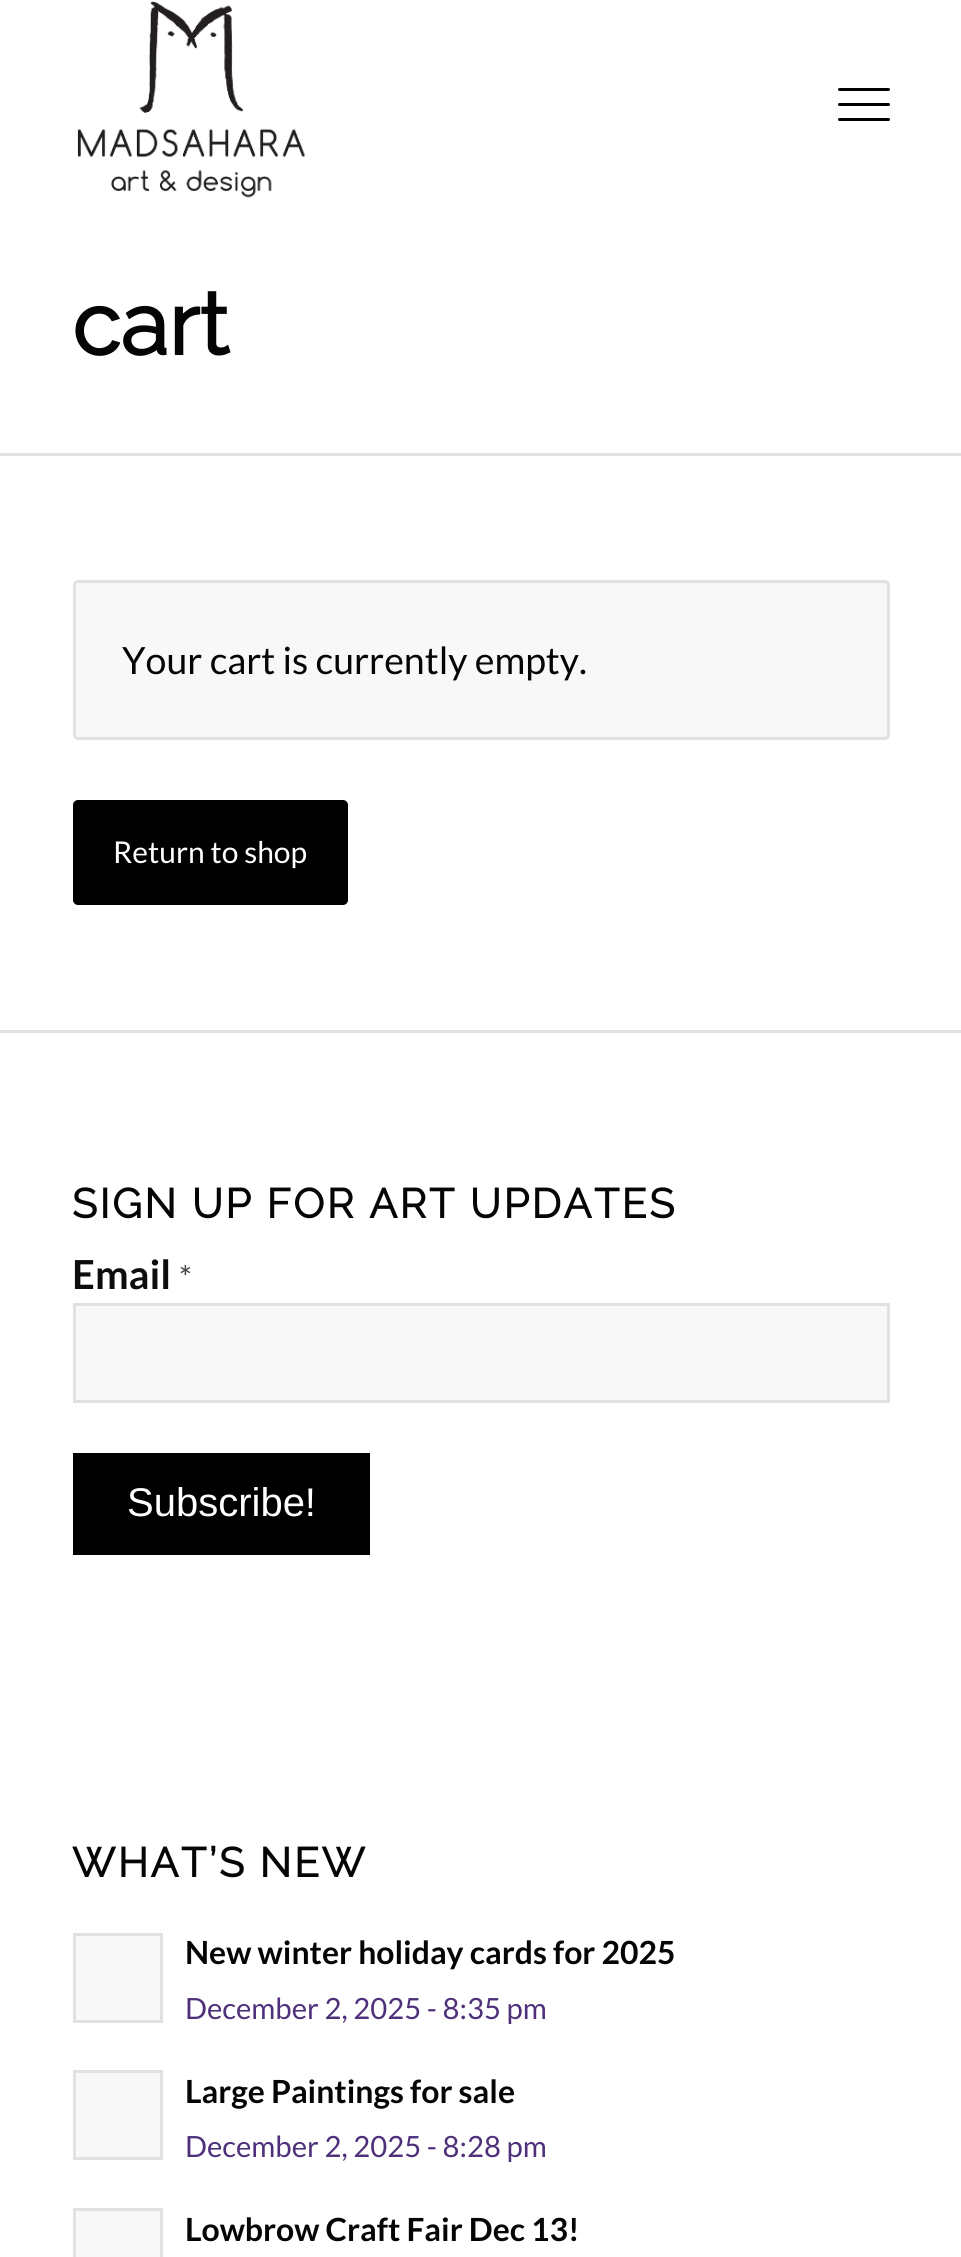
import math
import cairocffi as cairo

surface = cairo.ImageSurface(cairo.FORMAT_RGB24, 961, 2257)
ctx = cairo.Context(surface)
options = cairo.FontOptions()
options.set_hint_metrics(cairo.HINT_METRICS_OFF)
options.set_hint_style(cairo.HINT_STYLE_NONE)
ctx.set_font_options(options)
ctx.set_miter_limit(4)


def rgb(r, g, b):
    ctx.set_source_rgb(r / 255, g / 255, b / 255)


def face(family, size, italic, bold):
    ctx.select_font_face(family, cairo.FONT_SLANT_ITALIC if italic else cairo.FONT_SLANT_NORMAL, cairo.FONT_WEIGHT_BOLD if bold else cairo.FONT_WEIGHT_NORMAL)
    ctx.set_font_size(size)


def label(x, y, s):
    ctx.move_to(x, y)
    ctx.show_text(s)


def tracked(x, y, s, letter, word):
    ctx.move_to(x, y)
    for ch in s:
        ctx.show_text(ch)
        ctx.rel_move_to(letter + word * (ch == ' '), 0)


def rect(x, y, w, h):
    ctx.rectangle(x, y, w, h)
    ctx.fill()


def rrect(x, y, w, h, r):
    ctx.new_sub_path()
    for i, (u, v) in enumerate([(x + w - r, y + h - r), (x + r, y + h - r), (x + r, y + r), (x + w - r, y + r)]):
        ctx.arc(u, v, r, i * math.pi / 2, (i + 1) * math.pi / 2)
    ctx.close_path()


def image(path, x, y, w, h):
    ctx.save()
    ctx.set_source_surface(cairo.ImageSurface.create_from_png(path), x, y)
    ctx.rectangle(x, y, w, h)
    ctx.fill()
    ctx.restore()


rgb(255, 255, 255)
ctx.paint()
image('image0.png', 77, 1, 228, 197)
rgb(0, 0, 0)
rrect(838, 103, 52, 3, 1.5)
ctx.fill()
rrect(838, 88, 52, 3, 1.5)
ctx.fill()
rrect(838, 118, 52, 3, 1.5)
ctx.fill()
face('Raleway', 88, 0, 1)
rgb(5, 5, 5)
label(72, 355, 'cart')
rgb(225, 225, 225)
rect(0, 453, 961, 3)
rgb(248, 248, 248)
rrect(74.5, 581.5, 814, 157, 3.5)
ctx.fill_preserve()
rgb(225, 225, 225)
ctx.set_line_width(3)
ctx.stroke()
face('Lato', 37.5, 0, 0)
rgb(5, 5, 5)
label(122, 674, 'Your cart is currently empty.')
rgb(0, 0, 0)
rrect(73, 800, 275, 105, 5)
ctx.fill()
face('Lato', 30, 0, 0)
rgb(255, 255, 255)
label(113, 863, 'Return to shop')
rgb(225, 225, 225)
rect(0, 1030, 961, 3)
face('Raleway', 41.25, 0, 1)
rgb(5, 5, 5)
tracked(72, 1218, 'SIGN UP FOR ART UPDATES', 2.5, 0)
face('Lato', 40, 0, 1)
rgb(13, 13, 13)
label(72, 1289, 'Email')
face('Lato', 32, 0, 0)
rgb(68, 68, 68)
label(179, 1289, '*')
rgb(248, 248, 248)
ctx.rectangle(74.5, 1304.5, 814, 97)
ctx.fill_preserve()
rgb(225, 225, 225)
ctx.stroke()
rgb(0, 0, 0)
rect(73, 1453, 297, 102)
face('Liberation Sans', 40, 0, 0)
rgb(255, 255, 255)
label(127, 1516, 'Subscribe!')
face('Raleway', 41.25, 0, 1)
rgb(5, 5, 5)
tracked(72, 1877, 'WHAT’S NEW', 2.5, 0)
rgb(248, 248, 248)
ctx.rectangle(74.5, 1934.5, 87, 87)
ctx.fill_preserve()
rgb(225, 225, 225)
ctx.stroke()
face('Lato', 31.9, 0, 1)
rgb(5, 5, 5)
label(185, 1964, 'New winter holiday cards for 2025')
face('Lato', 29.25, 0, 0)
rgb(79, 49, 123)
label(185, 2019, 'December 2, 2025 - 8:35 pm')
rgb(248, 248, 248)
ctx.rectangle(74.5, 2071.5, 87, 87)
ctx.fill_preserve()
rgb(225, 225, 225)
ctx.stroke()
face('Lato', 31.9, 0, 1)
rgb(5, 5, 5)
label(185, 2103, 'Large Paintings for sale')
face('Lato', 29.25, 0, 0)
rgb(79, 49, 123)
label(185, 2157, 'December 2, 2025 - 8:28 pm')
rgb(248, 248, 248)
ctx.rectangle(74.5, 2209.5, 87, 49)
ctx.fill_preserve()
rgb(225, 225, 225)
ctx.stroke()
face('Lato', 31.9, 0, 1)
rgb(5, 5, 5)
label(185, 2241, 'Lowbrow Craft Fair Dec 13!')
surface.write_to_png('render.png')
